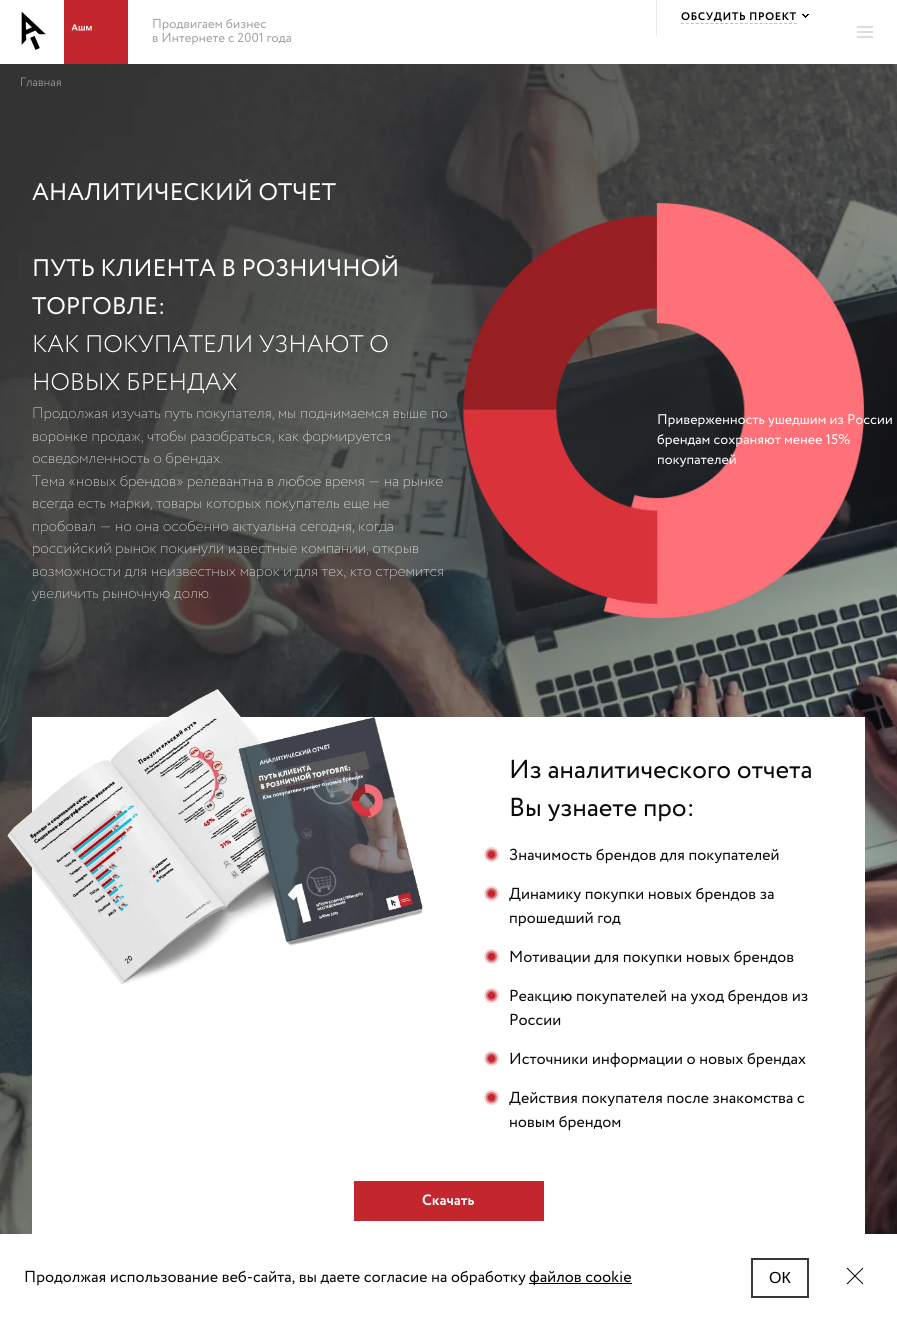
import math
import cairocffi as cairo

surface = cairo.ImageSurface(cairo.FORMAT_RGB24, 897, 1322)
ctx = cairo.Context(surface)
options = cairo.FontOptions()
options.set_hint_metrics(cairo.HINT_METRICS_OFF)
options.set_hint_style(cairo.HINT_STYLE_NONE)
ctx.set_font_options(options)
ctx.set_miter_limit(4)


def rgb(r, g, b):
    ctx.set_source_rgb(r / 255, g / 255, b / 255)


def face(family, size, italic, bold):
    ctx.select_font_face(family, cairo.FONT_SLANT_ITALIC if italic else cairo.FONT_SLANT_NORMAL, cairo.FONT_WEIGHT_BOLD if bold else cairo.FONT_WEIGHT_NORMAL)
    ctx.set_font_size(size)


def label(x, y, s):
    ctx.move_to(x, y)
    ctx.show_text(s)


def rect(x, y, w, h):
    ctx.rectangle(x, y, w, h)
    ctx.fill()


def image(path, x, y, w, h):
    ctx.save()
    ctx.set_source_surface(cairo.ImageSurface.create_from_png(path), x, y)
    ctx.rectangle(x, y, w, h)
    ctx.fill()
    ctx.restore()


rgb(255, 255, 255)
ctx.paint()
image('image0.png', 21, 0, 107, 64)
image('image1.png', 153, 18, 113, 13)
image('image2.png', 152, 32, 139, 13)
rgb(232, 232, 232)
rect(656, 0, 1, 36)
ctx.new_path()
ctx.move_to(681, 23.5)
ctx.line_to(797, 23.5)
rgb(191, 191, 191)
ctx.set_line_width(1)
ctx.set_dash([3, 1.91])
ctx.stroke()
image('image3.png', 681, 12, 115, 10)
image('image4.png', 802, 14, 7, 4)
image('image5.png', 857, 26, 16, 12)
image('image6.png', 0, 64, 897, 1170)
image('image7.png', 32, 179, 304, 22)
image('image8.png', 34, 255, 363, 22)
image('image9.png', 32, 297, 131, 18)
image('image10.png', 34, 335, 354, 18)
image('image11.png', 34, 373, 203, 21)
image('image12.png', 33, 407, 414, 14)
image('image13.png', 33, 430, 357, 14)
image('image14.png', 32, 452, 190, 14)
image('image15.png', 32, 475, 411, 14)
image('image16.png', 33, 501, 356, 10)
image('image17.png', 33, 520, 360, 14)
image('image18.png', 33, 542, 386, 14)
image('image19.png', 33, 569, 410, 10)
image('image20.png', 32, 591, 179, 10)
image('image21.png', 463, 203, 402, 416)
image('image22.png', 658, 414, 234, 13)
image('image23.png', 657, 434, 193, 13)
image('image24.png', 658, 454, 78, 13)
rgb(255, 255, 255)
rect(32, 717, 833, 517)
image('image25.png', 7, 689, 416, 295)
image('image26.png', 511, 759, 300, 20)
image('image27.png', 511, 797, 182, 25)
image('image28.png', 484, 847, 15, 15)
image('image29.png', 509, 848, 270, 16)
image('image28.png', 484, 886, 15, 15)
image('image30.png', 509, 887, 265, 16)
image('image31.png', 510, 912, 111, 15)
image('image28.png', 484, 949, 15, 15)
image('image32.png', 510, 950, 284, 16)
image('image28.png', 484, 988, 15, 15)
image('image33.png', 510, 989, 298, 16)
image('image34.png', 510, 1013, 51, 13)
image('image28.png', 484, 1051, 15, 15)
image('image35.png', 510, 1052, 296, 16)
image('image28.png', 484, 1090, 15, 15)
image('image36.png', 509, 1091, 296, 16)
image('image37.png', 510, 1115, 111, 16)
rgb(196, 38, 46)
rect(354, 1181, 190, 40)
image('image38.png', 422, 1194, 53, 12)
image('image39.png', 21, 77, 40, 9)
image('image40.png', 25, 1270, 501, 16)
rgb(0, 0, 0)
rect(529, 1283, 103, 1)
image('image41.png', 529, 1270, 102, 16)
ctx.rectangle(752, 1259, 56, 38)
rgb(56, 56, 56)
ctx.set_line_width(2)
ctx.set_dash([])
ctx.stroke()
face('Liberation Sans', 16, 0, 0)
rgb(0, 0, 0)
label(769, 1283, 'ОК')
ctx.new_path()
ctx.move_to(863, 1268)
ctx.line_to(847, 1284)
ctx.move_to(847, 1268)
ctx.line_to(863, 1284)
ctx.set_line_width(1)
ctx.stroke()
surface.write_to_png('render.png')
